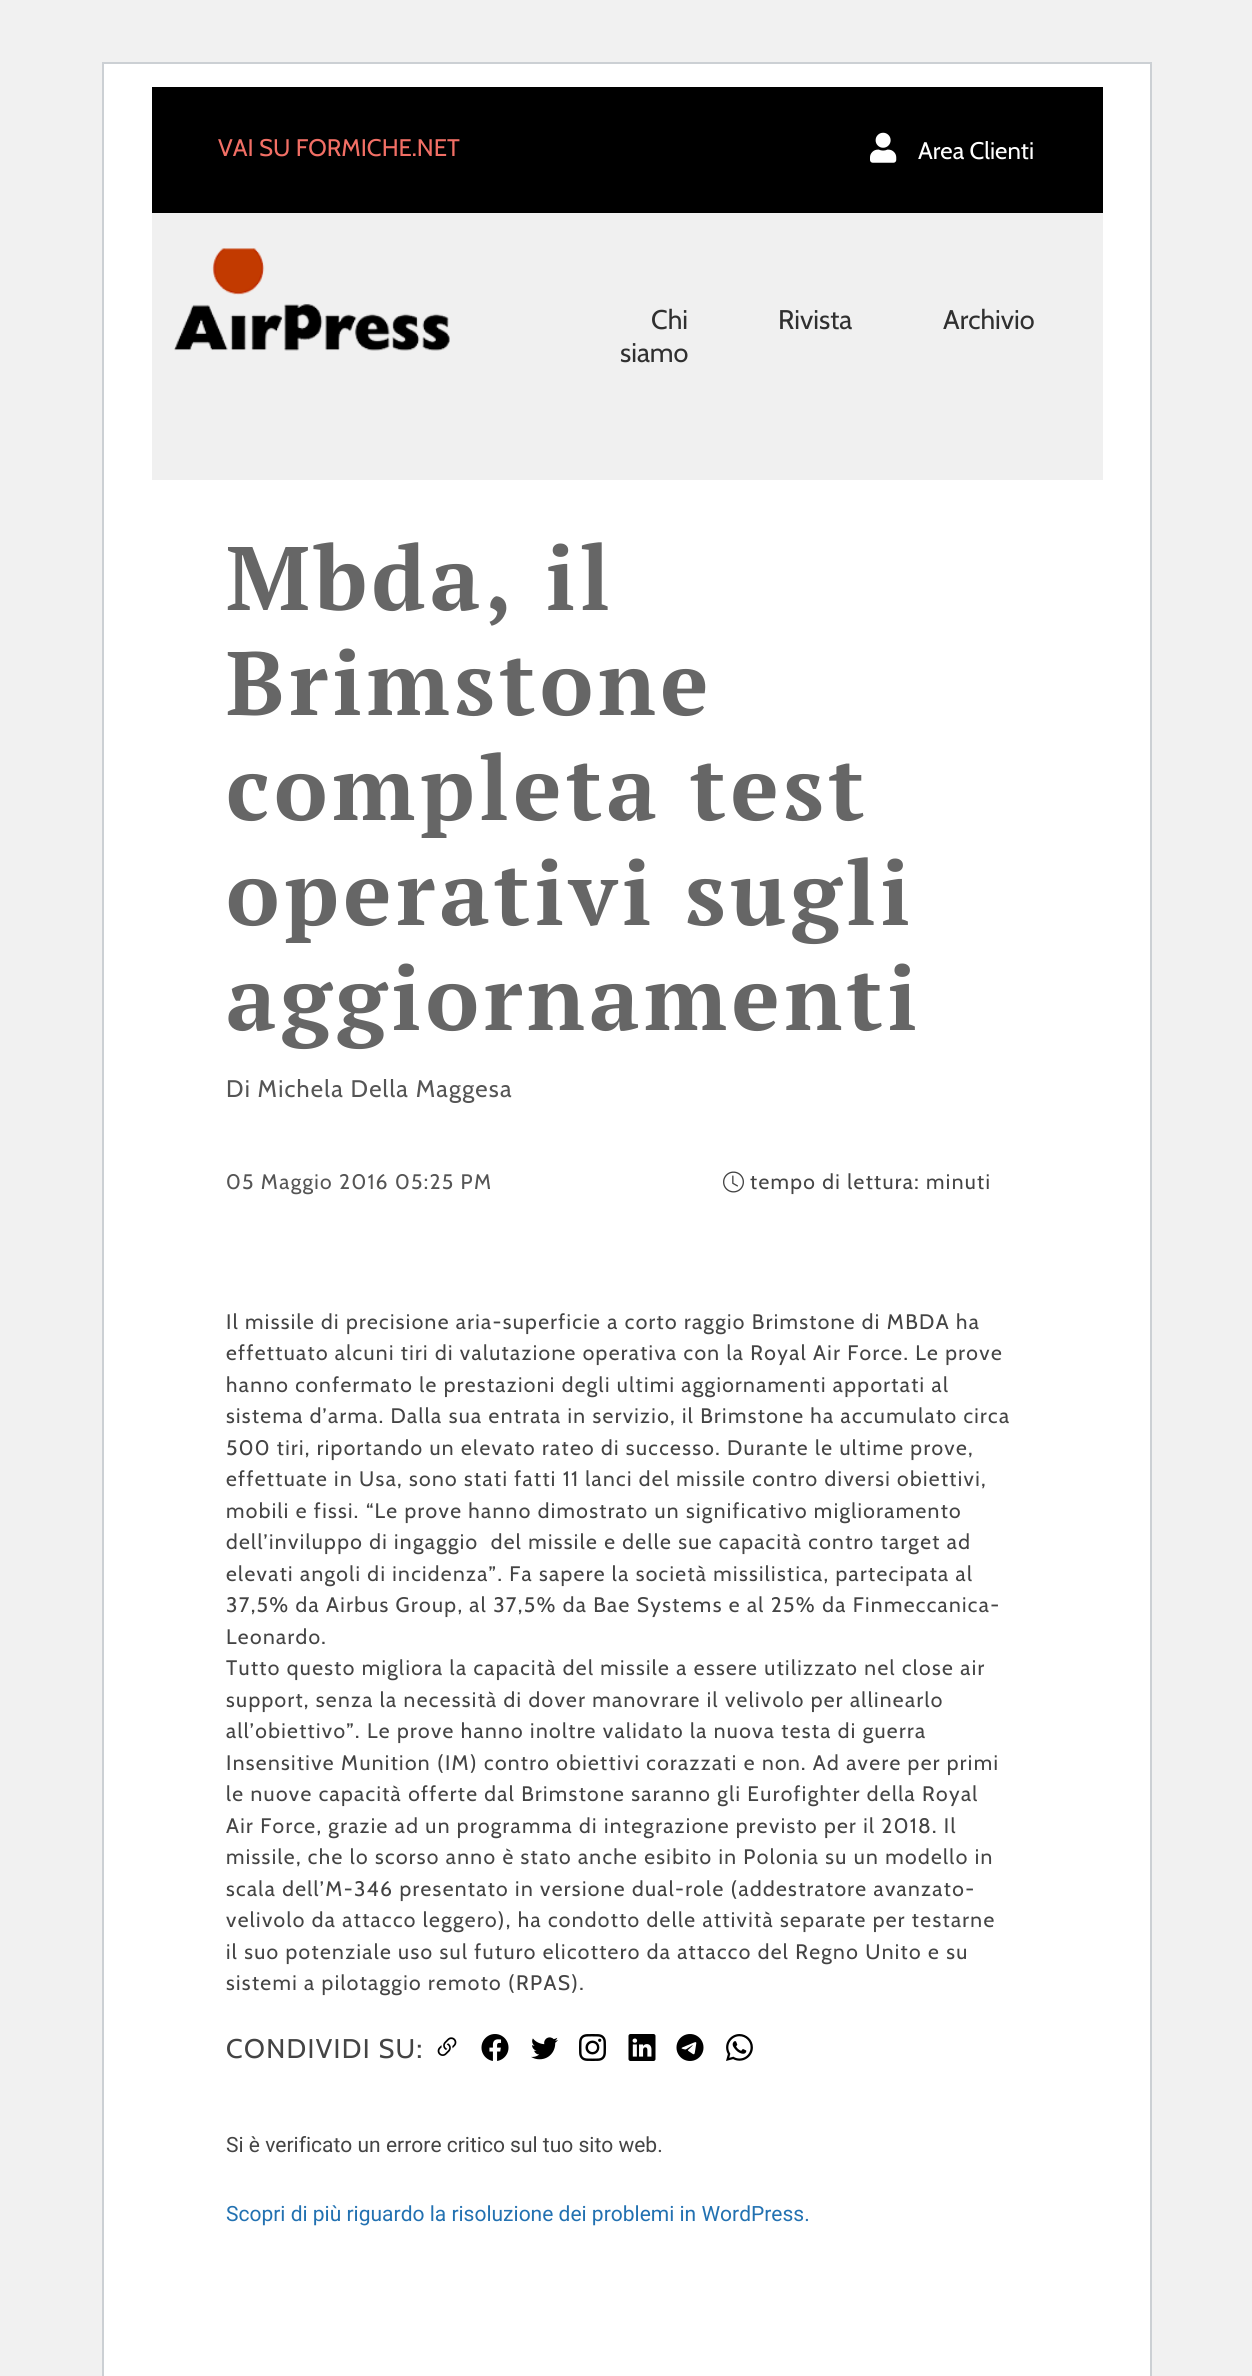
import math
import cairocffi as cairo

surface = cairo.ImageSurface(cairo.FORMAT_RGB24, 1252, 2376)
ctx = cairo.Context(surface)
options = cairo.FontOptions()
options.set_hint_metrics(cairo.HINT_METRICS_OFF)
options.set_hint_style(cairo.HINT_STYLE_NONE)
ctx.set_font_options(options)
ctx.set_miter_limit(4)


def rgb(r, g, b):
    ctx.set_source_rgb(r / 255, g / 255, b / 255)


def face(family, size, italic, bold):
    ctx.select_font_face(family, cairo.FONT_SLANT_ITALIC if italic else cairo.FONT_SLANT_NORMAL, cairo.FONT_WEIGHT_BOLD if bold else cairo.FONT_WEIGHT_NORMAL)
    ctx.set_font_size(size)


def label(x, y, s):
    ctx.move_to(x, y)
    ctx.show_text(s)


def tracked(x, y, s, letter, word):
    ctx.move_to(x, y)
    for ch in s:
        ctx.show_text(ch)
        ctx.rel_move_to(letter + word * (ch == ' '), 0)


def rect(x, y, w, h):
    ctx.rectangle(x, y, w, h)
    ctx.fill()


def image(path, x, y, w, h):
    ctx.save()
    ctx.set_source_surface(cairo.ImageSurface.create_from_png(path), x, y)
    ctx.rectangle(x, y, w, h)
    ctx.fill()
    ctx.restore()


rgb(241, 241, 241)
ctx.paint()
rgb(255, 255, 255)
ctx.rectangle(103, 63, 1048, 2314)
ctx.fill_preserve()
rgb(204, 208, 212)
ctx.stroke()
rgb(0, 0, 0)
rect(152, 87, 951, 126)
face('Cabin', 24, 0, 0)
rgb(242, 111, 101)
label(218, 156, 'VAI SU FORMICHE.NET')
image('image0.png', 870, 132, 27, 31)
rgb(255, 255, 255)
label(918, 159, 'Area Clienti')
rgb(240, 240, 240)
rect(152, 213, 951, 267)
image('image1.png', 174, 248, 276, 103)
face('Cabin', 27, 0, 0)
rgb(48, 48, 48)
label(651, 329, 'Chi')
label(620, 362, 'siamo')
label(778, 329, 'Rivista')
label(943, 329, 'Archivio')
face('PT Serif', 90, 0, 1)
rgb(102, 102, 102)
tracked(226, 610, 'Mbda, il', 4.5, 0)
tracked(226, 715, 'Brimstone', 4.5, 0)
tracked(226, 820, 'completa test', 4.5, 0)
tracked(226, 925, 'operativi sugli', 4.5, 0)
tracked(226, 1030, 'aggiornamenti', 4.5, 0)
face('Cabin', 24, 0, 0)
rgb(85, 85, 85)
tracked(226, 1097, 'Di Michela Della Maggesa', 1.2, 0)
face('Cabin', 21, 0, 0)
tracked(226, 1189, '05 Maggio 2016 05:25 PM', 1.35, 0)
image('image2.png', 723, 1171, 21, 22)
rgb(68, 68, 68)
tracked(750, 1189, 'tempo di lettura: minuti', 1.35, 0)
tracked(226, 1329, 'Il missile di precisione aria-superficie a corto raggio Brimstone di MBDA ha', 1.35, 0)
tracked(226, 1360, 'effettuato alcuni tiri di valutazione operativa con la Royal Air Force. Le prove', 1.35, 0)
tracked(226, 1392, 'hanno confermato le prestazioni degli ultimi aggiornamenti apportati al', 1.35, 0)
tracked(226, 1423, 'sistema d’arma. Dalla sua entrata in servizio, il Brimstone ha accumulato circa', 1.35, 0)
tracked(226, 1455, '500 tiri, riportando un elevato rateo di successo. Durante le ultime prove,', 1.35, 0)
tracked(226, 1486, 'effettuate in Usa, sono stati fatti 11 lanci del missile contro diversi obiettivi,', 1.35, 0)
tracked(226, 1518, 'mobili e fissi. “Le prove hanno dimostrato un significativo miglioramento', 1.35, 0)
tracked(226, 1549, 'dell’inviluppo di ingaggio  del missile e delle sue capacità contro target ad', 1.35, 0)
tracked(226, 1581, 'elevati angoli di incidenza”. Fa sapere la società missilistica, partecipata al', 1.35, 0)
tracked(226, 1612, '37,5% da Airbus Group, al 37,5% da Bae Systems e al 25% da Finmeccanica-', 1.35, 0)
tracked(226, 1644, 'Leonardo.', 1.35, 0)
tracked(226, 1675, 'Tutto questo migliora la capacità del missile a essere utilizzato nel close air', 1.35, 0)
tracked(226, 1707, 'support, senza la necessità di dover manovrare il velivolo per allinearlo', 1.35, 0)
tracked(226, 1738, 'all’obiettivo”. Le prove hanno inoltre validato la nuova testa di guerra', 1.35, 0)
tracked(226, 1770, 'Insensitive Munition (IM) contro obiettivi corazzati e non. Ad avere per primi', 1.35, 0)
tracked(226, 1801, 'le nuove capacità offerte dal Brimstone saranno gli Eurofighter della Royal', 1.35, 0)
tracked(226, 1833, 'Air Force, grazie ad un programma di integrazione previsto per il 2018. Il', 1.35, 0)
tracked(226, 1864, 'missile, che lo scorso anno è stato anche esibito in Polonia su un modello in', 1.35, 0)
tracked(226, 1896, 'scala dell’M-346 presentato in versione dual-role (addestratore avanzato-', 1.35, 0)
tracked(226, 1927, 'velivolo da attacco leggero), ha condotto delle attività separate per testarne', 1.35, 0)
tracked(226, 1959, 'il suo potenziale uso sul futuro elicottero da attacco del Regno Unito e su', 1.35, 0)
tracked(226, 1990, 'sistemi a pilotaggio remoto (RPAS).', 1.35, 0)
face('Cabin', 27, 0, 0)
tracked(226, 2058, 'CONDIVIDI SU:', 1.35, 0)
image('image3.png', 437, 2037, 20, 19)
image('image4.png', 481, 2034, 28, 27)
image('image5.png', 531, 2037, 27, 23)
image('image6.png', 579, 2034, 27, 27)
image('image7.png', 628, 2034, 28, 27)
image('image8.png', 676, 2034, 28, 27)
image('image9.png', 726, 2034, 27, 27)
face('Roboto', 21, 0, 0)
label(226, 2152, 'Si è verificato un errore critico sul tuo sito web.')
rgb(34, 113, 177)
label(226, 2221, 'Scopri di più riguardo la risoluzione dei problemi in WordPress.')
surface.write_to_png('render.png')
